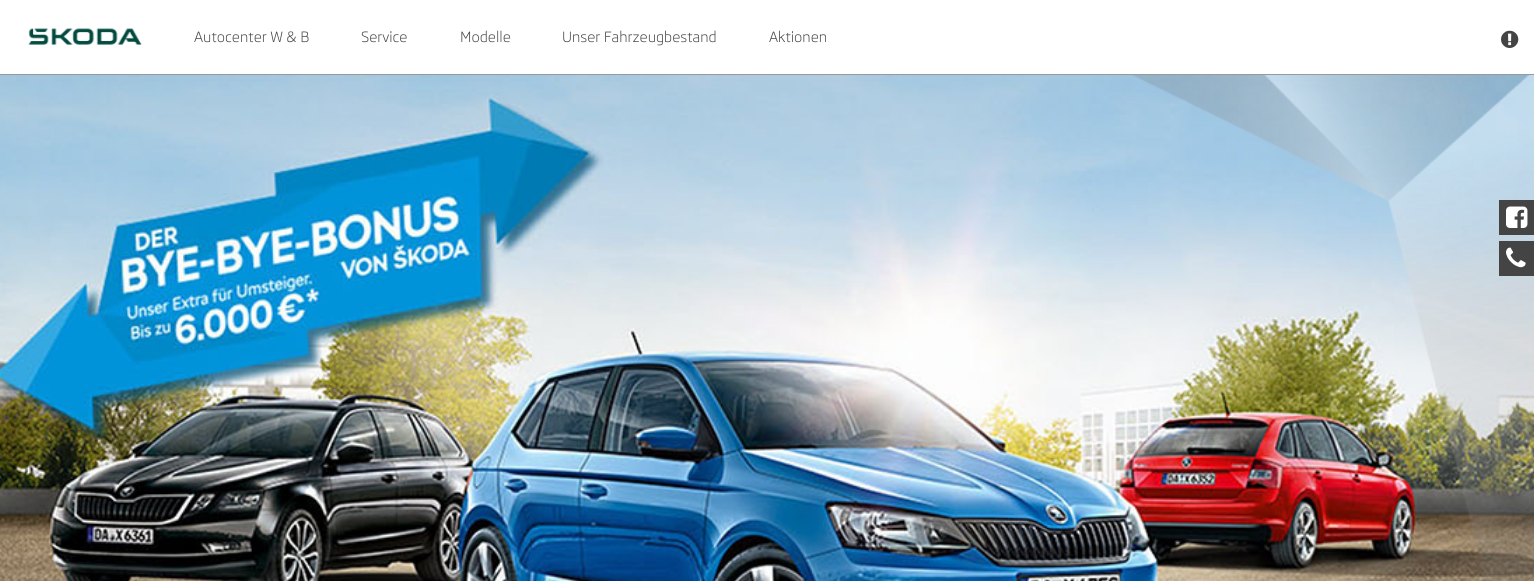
import math
import cairocffi as cairo

surface = cairo.ImageSurface(cairo.FORMAT_RGB24, 1534, 581)
ctx = cairo.Context(surface)
options = cairo.FontOptions()
options.set_hint_metrics(cairo.HINT_METRICS_OFF)
options.set_hint_style(cairo.HINT_STYLE_NONE)
ctx.set_font_options(options)
ctx.set_miter_limit(4)


def rgb(r, g, b):
    ctx.set_source_rgb(r / 255, g / 255, b / 255)


def face(family, size, italic, bold):
    ctx.select_font_face(family, cairo.FONT_SLANT_ITALIC if italic else cairo.FONT_SLANT_NORMAL, cairo.FONT_WEIGHT_BOLD if bold else cairo.FONT_WEIGHT_NORMAL)
    ctx.set_font_size(size)


def label(x, y, s):
    ctx.move_to(x, y)
    ctx.show_text(s)


def rect(x, y, w, h):
    ctx.rectangle(x, y, w, h)
    ctx.fill()


def image(path, x, y, w, h):
    ctx.save()
    ctx.set_source_surface(cairo.ImageSurface.create_from_png(path), x, y)
    ctx.rectangle(x, y, w, h)
    ctx.fill()
    ctx.restore()


rgb(255, 255, 255)
ctx.paint()
rgb(153, 153, 153)
rect(0, 74, 1534, 1)
image('image0.png', 28, 28, 114, 17)
face('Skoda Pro', 14.4, 0, 0)
rgb(68, 68, 68)
label(194, 42, 'Autocenter W & B')
label(361, 42, 'Service')
label(460, 42, 'Modelle')
label(562, 42, 'Unser Fahrzeugbestand')
label(769, 42, 'Aktionen')
image('image1.png', 1501, 30, 18, 18)
image('image2.png', 0, 75, 1534, 506)
image('image3.png', 1132, 75, 402, 506)
rect(1499, 200, 35, 35)
image('image4.png', 1506, 206, 22, 22)
rect(1499, 241, 35, 35)
image('image5.png', 1506, 247, 20, 21)
surface.write_to_png('render.png')
